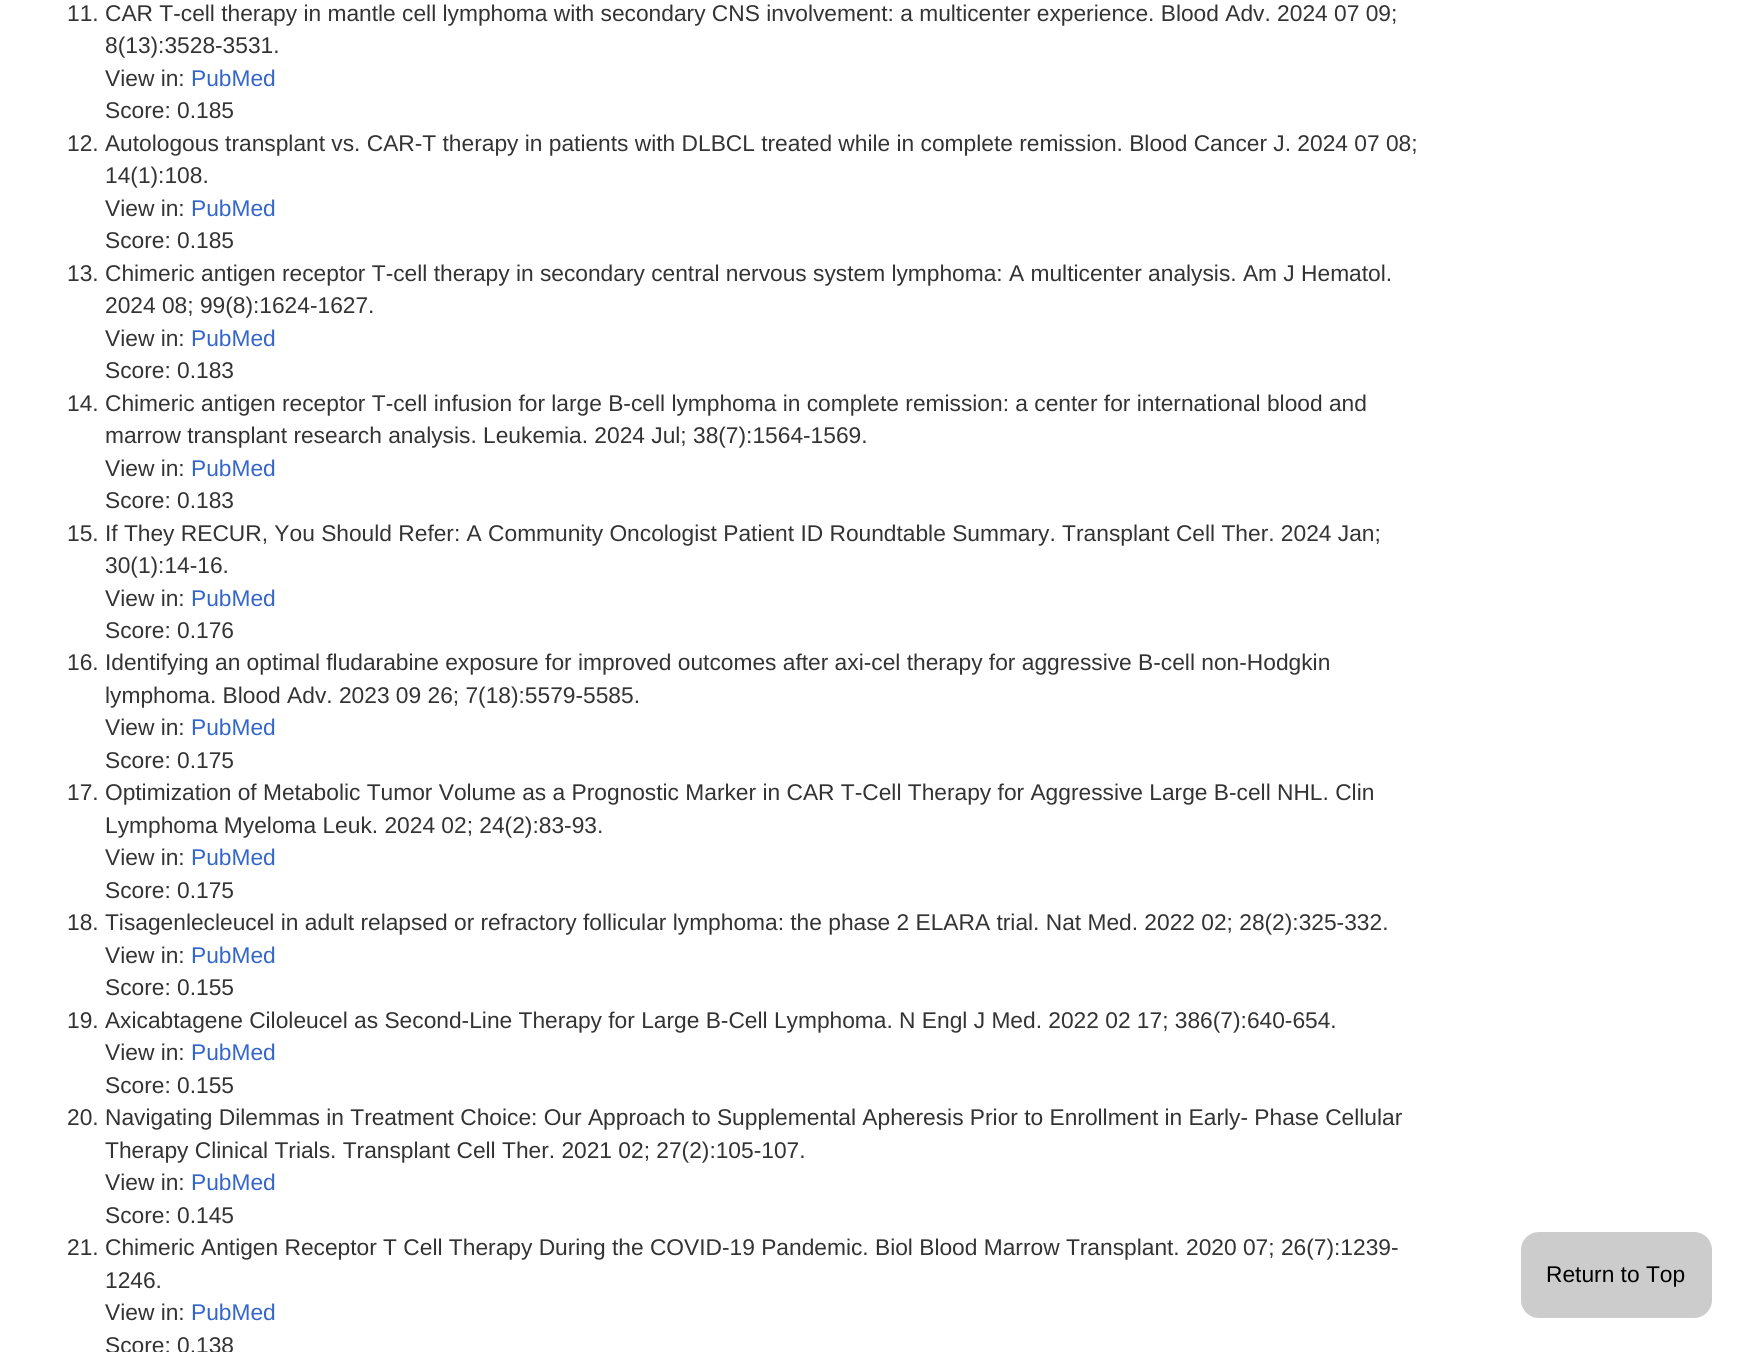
import math
import cairocffi as cairo

surface = cairo.ImageSurface(cairo.FORMAT_RGB24, 1763, 1352)
ctx = cairo.Context(surface)
options = cairo.FontOptions()
options.set_hint_metrics(cairo.HINT_METRICS_OFF)
options.set_hint_style(cairo.HINT_STYLE_NONE)
ctx.set_font_options(options)
ctx.set_miter_limit(4)


def rgb(r, g, b):
    ctx.set_source_rgb(r / 255, g / 255, b / 255)


def face(family, size, italic, bold):
    ctx.select_font_face(family, cairo.FONT_SLANT_ITALIC if italic else cairo.FONT_SLANT_NORMAL, cairo.FONT_WEIGHT_BOLD if bold else cairo.FONT_WEIGHT_NORMAL)
    ctx.set_font_size(size)


def label(x, y, s):
    ctx.move_to(x, y)
    ctx.show_text(s)


def rrect(x, y, w, h, r):
    ctx.new_sub_path()
    for i, (u, v) in enumerate([(x + w - r, y + h - r), (x + r, y + h - r), (x + r, y + r), (x + w - r, y + r)]):
        ctx.arc(u, v, r, i * math.pi / 2, (i + 1) * math.pi / 2)
    ctx.close_path()


rgb(255, 255, 255)
ctx.paint()
face('Liberation Sans', 22.75, 0, 0)
rgb(51, 51, 51)
label(67, 21, '11. CAR T-cell therapy in mantle cell lymphoma with secondary CNS involvement: a multicenter experience. Blood Adv. 2024 07 09;')
label(105, 53, '8(13):3528-3531.')
label(105, 86, 'View in:')
rgb(51, 102, 204)
label(191, 86, 'PubMed')
rgb(51, 51, 51)
label(105, 118, 'Score: 0.185')
label(67, 151, '12. Autologous transplant vs. CAR-T therapy in patients with DLBCL treated while in complete remission. Blood Cancer J. 2024 07 08;')
label(105, 183, '14(1):108.')
label(105, 216, 'View in:')
rgb(51, 102, 204)
label(191, 216, 'PubMed')
rgb(51, 51, 51)
label(105, 248, 'Score: 0.185')
label(67, 281, '13. Chimeric antigen receptor T-cell therapy in secondary central nervous system lymphoma: A multicenter analysis. Am J Hematol.')
label(105, 313, '2024 08; 99(8):1624-1627.')
label(105, 346, 'View in:')
rgb(51, 102, 204)
label(191, 346, 'PubMed')
rgb(51, 51, 51)
label(105, 378, 'Score: 0.183')
label(67, 411, '14. Chimeric antigen receptor T-cell infusion for large B-cell lymphoma in complete remission: a center for international blood and')
label(105, 443, 'marrow transplant research analysis. Leukemia. 2024 Jul; 38(7):1564-1569.')
label(105, 476, 'View in:')
rgb(51, 102, 204)
label(191, 476, 'PubMed')
rgb(51, 51, 51)
label(105, 508, 'Score: 0.183')
label(67, 541, '15. If They RECUR, You Should Refer: A Community Oncologist Patient ID Roundtable Summary. Transplant Cell Ther. 2024 Jan;')
label(105, 573, '30(1):14-16.')
label(105, 606, 'View in:')
rgb(51, 102, 204)
label(191, 606, 'PubMed')
rgb(51, 51, 51)
label(105, 638, 'Score: 0.176')
label(67, 670, '16. Identifying an optimal fludarabine exposure for improved outcomes after axi-cel therapy for aggressive B-cell non-Hodgkin')
label(105, 703, 'lymphoma. Blood Adv. 2023 09 26; 7(18):5579-5585.')
label(105, 735, 'View in:')
rgb(51, 102, 204)
label(191, 735, 'PubMed')
rgb(51, 51, 51)
label(105, 768, 'Score: 0.175')
label(67, 800, '17. Optimization of Metabolic Tumor Volume as a Prognostic Marker in CAR T-Cell Therapy for Aggressive Large B-cell NHL. Clin')
label(105, 833, 'Lymphoma Myeloma Leuk. 2024 02; 24(2):83-93.')
label(105, 865, 'View in:')
rgb(51, 102, 204)
label(191, 865, 'PubMed')
rgb(51, 51, 51)
label(105, 898, 'Score: 0.175')
label(67, 930, '18. Tisagenlecleucel in adult relapsed or refractory follicular lymphoma: the phase 2 ELARA trial. Nat Med. 2022 02; 28(2):325-332.')
label(105, 963, 'View in:')
rgb(51, 102, 204)
label(191, 963, 'PubMed')
rgb(51, 51, 51)
label(105, 995, 'Score: 0.155')
label(67, 1028, '19. Axicabtagene Ciloleucel as Second-Line Therapy for Large B-Cell Lymphoma. N Engl J Med. 2022 02 17; 386(7):640-654.')
label(105, 1060, 'View in:')
rgb(51, 102, 204)
label(191, 1060, 'PubMed')
rgb(51, 51, 51)
label(105, 1093, 'Score: 0.155')
label(67, 1125, '20. Navigating Dilemmas in Treatment Choice: Our Approach to Supplemental Apheresis Prior to Enrollment in Early- Phase Cellular')
label(105, 1158, 'Therapy Clinical Trials. Transplant Cell Ther. 2021 02; 27(2):105-107.')
label(105, 1190, 'View in:')
rgb(51, 102, 204)
label(191, 1190, 'PubMed')
rgb(51, 51, 51)
label(105, 1223, 'Score: 0.145')
label(67, 1255, '21. Chimeric Antigen Receptor T Cell Therapy During the COVID-19 Pandemic. Biol Blood Marrow Transplant. 2020 07; 26(7):1239-')
label(105, 1288, '1246.')
label(105, 1320, 'View in:')
rgb(51, 102, 204)
label(191, 1320, 'PubMed')
rgb(51, 51, 51)
label(105, 1353, 'Score: 0.138')
rgb(204, 204, 204)
rrect(1521, 1232, 191, 86, 18)
ctx.fill()
rgb(0, 0, 0)
label(1546, 1282, 'Return to Top')
surface.write_to_png('render.png')
